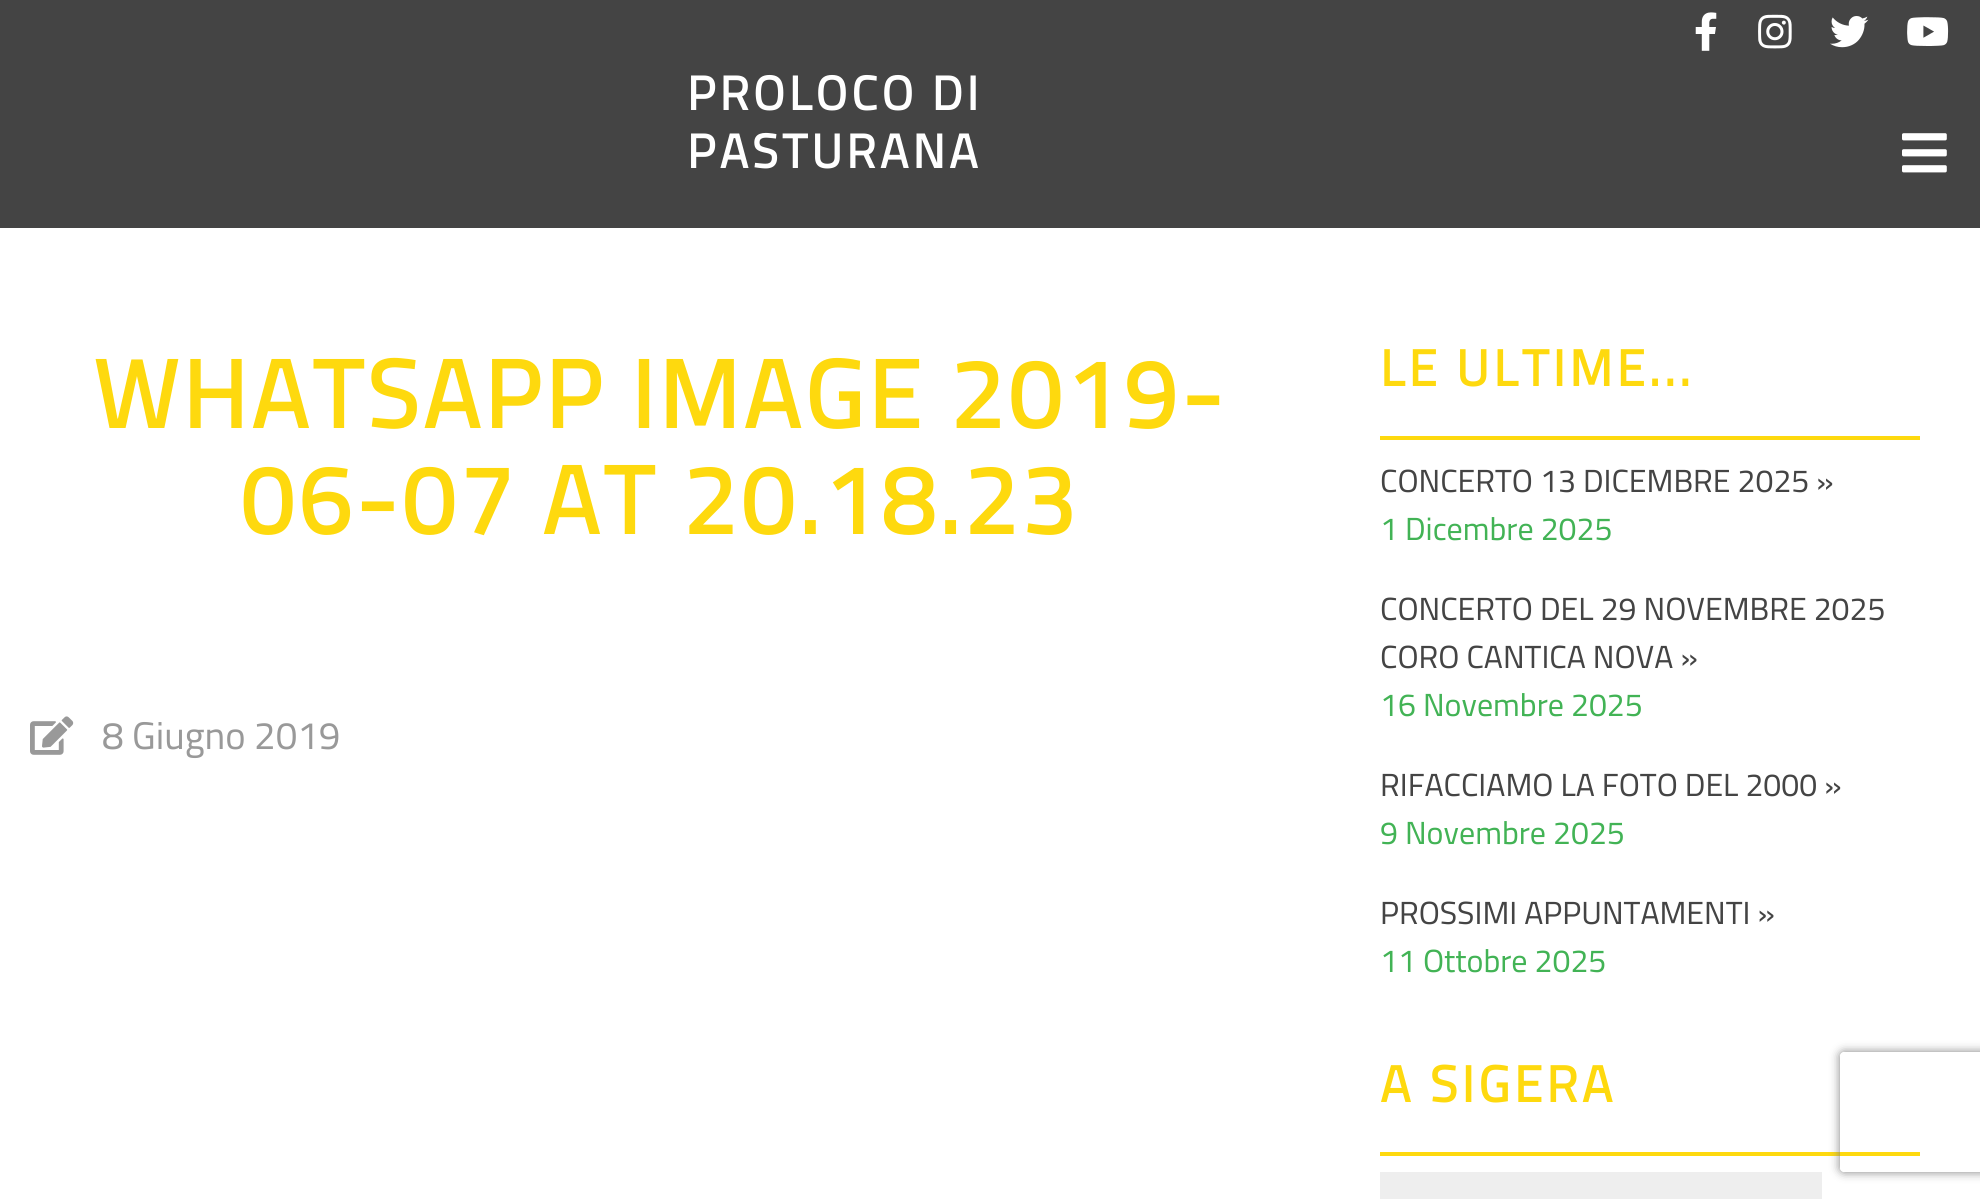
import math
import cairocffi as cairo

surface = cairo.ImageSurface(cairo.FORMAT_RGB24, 1980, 1199)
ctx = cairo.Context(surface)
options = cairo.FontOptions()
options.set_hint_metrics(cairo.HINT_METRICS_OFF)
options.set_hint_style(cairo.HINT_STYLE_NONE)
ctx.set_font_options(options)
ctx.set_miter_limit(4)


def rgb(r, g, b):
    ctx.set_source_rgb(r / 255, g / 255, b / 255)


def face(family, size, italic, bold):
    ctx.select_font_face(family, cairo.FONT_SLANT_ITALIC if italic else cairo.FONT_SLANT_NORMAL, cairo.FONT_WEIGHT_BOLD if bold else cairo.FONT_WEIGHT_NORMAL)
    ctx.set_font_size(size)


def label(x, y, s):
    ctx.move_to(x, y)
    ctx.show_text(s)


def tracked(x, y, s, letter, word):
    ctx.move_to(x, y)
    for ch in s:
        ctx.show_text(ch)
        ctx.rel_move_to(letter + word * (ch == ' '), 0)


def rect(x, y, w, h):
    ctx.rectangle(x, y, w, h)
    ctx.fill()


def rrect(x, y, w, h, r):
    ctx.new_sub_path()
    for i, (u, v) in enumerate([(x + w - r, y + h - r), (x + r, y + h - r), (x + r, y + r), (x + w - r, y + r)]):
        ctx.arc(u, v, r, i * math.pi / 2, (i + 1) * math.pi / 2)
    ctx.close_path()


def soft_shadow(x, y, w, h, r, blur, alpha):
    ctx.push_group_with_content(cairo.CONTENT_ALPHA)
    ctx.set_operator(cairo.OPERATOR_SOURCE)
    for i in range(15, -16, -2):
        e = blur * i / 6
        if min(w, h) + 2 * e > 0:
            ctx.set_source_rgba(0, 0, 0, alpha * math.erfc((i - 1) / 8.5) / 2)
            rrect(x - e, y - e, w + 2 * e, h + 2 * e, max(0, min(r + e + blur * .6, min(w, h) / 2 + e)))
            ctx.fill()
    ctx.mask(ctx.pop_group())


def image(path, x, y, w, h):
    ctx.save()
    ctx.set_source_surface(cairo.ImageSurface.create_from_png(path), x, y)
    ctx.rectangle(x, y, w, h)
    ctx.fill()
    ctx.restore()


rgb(255, 255, 255)
ctx.paint()
rgb(68, 68, 68)
rect(0, 0, 1980, 228)
image('image0.png', 1695, 12, 22, 39)
image('image1.png', 1758, 14, 34, 35)
image('image2.png', 1830, 16, 39, 32)
image('image3.png', 1907, 17, 42, 29)
face('Cairo', 48, 0, 1)
rgb(255, 255, 255)
tracked(687, 110, 'PROLOCO DI', 4, 0)
tracked(687, 168, 'PASTURANA', 4, 0)
image('image4.png', 1902, 133, 45, 40)
face('Cairo', 96, 0, 1)
rgb(254, 217, 14)
tracked(93, 428, 'WHATSAPP IMAGE 2019-', 4, 0)
tracked(240, 534, '06-07 AT 20.18.23', 4, 0)
image('image5.png', 30, 716, 44, 39)
face('Cairo', 38.5, 0, 0)
rgb(153, 153, 153)
label(102, 749, '8 Giugno 2019')
rgb(254, 217, 14)
rect(1380, 436, 540, 4)
face('Cairo', 51.25, 0, 1)
tracked(1380, 386, 'LE ULTIME...', 4, 0)
face('Cairo', 32, 0, 0)
rgb(68, 68, 68)
label(1380, 492, 'CONCERTO 13 DICEMBRE 2025 »')
rgb(66, 179, 85)
label(1380, 540, '1 Dicembre 2025')
rgb(68, 68, 68)
label(1380, 620, 'CONCERTO DEL 29 NOVEMBRE 2025')
label(1380, 668, 'CORO CANTICA NOVA »')
rgb(66, 179, 85)
label(1380, 716, '16 Novembre 2025')
rgb(68, 68, 68)
label(1380, 796, 'RIFACCIAMO LA FOTO DEL 2000 »')
rgb(66, 179, 85)
label(1380, 844, '9 Novembre 2025')
rgb(68, 68, 68)
label(1380, 924, 'PROSSIMI APPUNTAMENTI »')
rgb(66, 179, 85)
label(1380, 972, '11 Ottobre 2025')
rgb(254, 217, 14)
rect(1380, 1152, 540, 4)
face('Cairo', 51.25, 0, 1)
tracked(1380, 1102, 'A SIGERA', 4, 0)
rgb(238, 238, 238)
rect(1380, 1172, 442, 27)
ctx.save()
ctx.set_fill_rule(cairo.FILL_RULE_EVEN_ODD)
ctx.new_path()
ctx.move_to(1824, 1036)
ctx.line_to(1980, 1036)
ctx.line_to(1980, 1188)
ctx.line_to(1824, 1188)
ctx.close_path()
ctx.move_to(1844, 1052)
ctx.line_to(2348, 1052)
ctx.curve_to(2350, 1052, 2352, 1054, 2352, 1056)
ctx.line_to(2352, 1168)
ctx.curve_to(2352, 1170, 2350, 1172, 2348, 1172)
ctx.line_to(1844, 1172)
ctx.curve_to(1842, 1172, 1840, 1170, 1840, 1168)
ctx.line_to(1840, 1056)
ctx.curve_to(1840, 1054, 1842, 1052, 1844, 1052)
ctx.close_path()
ctx.clip()
rgb(128, 128, 128)
soft_shadow(1840, 1052, 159, 120, 4, 5, 1)
ctx.restore()
surface.write_to_png('render.png')
